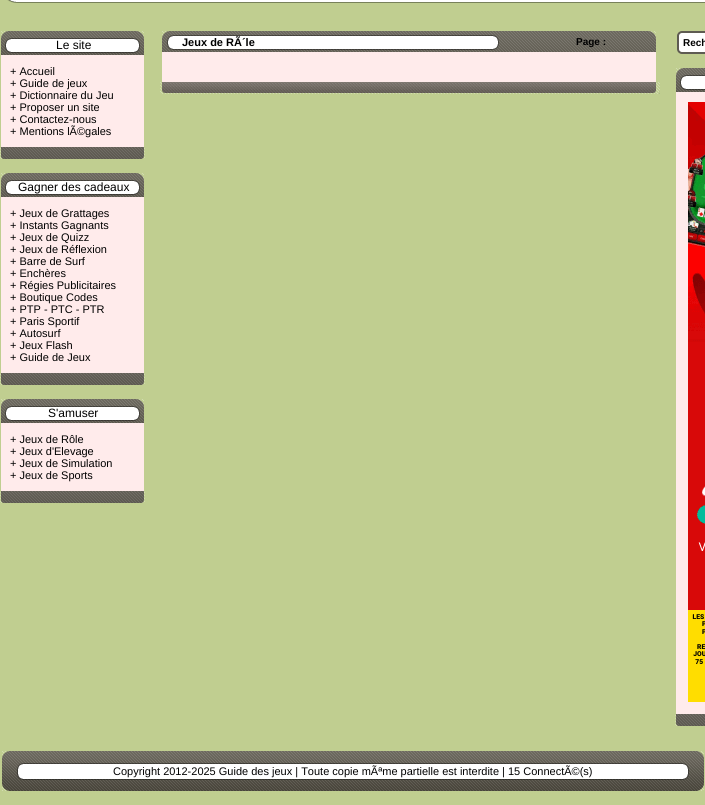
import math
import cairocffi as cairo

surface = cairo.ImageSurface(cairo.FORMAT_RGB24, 705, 805)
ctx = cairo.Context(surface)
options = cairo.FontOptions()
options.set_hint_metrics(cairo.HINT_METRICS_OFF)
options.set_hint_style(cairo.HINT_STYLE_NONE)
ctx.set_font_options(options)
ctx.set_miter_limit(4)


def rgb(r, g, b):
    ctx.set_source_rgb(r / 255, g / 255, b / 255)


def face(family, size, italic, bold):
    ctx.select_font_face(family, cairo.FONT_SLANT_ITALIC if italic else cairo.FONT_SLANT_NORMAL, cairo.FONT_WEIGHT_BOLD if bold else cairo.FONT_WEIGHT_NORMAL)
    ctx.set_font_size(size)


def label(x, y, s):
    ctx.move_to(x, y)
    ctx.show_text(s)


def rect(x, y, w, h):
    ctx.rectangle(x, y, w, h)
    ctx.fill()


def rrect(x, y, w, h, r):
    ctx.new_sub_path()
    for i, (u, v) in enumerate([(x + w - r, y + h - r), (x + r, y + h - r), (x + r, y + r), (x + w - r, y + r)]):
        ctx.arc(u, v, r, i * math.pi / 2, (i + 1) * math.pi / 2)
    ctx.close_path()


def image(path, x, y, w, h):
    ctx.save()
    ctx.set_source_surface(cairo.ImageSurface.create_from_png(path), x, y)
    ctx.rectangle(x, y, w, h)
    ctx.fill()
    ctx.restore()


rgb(192, 206, 144)
ctx.paint()
image('image0.png', 7, 0, 698, 3)
image('image1.png', 1, 31, 143, 24)
face('Liberation Sans', 12, 0, 0)
rgb(0, 0, 0)
label(56, 49, 'Le site')
rgb(255, 235, 235)
rect(1, 55, 143, 92)
face('Liberation Sans', 11, 0, 0)
rgb(0, 0, 0)
label(10, 75, '+ Accueil')
label(10, 87, '+ Guide de jeux')
label(10, 99, '+ Dictionnaire du Jeu')
label(10, 111, '+ Proposer un site')
label(10, 123, '+ Contactez-nous')
label(10, 135, '+ Mentions lÃ©gales')
image('image2.png', 0, 147, 145, 12)
image('image1.png', 1, 173, 143, 24)
face('Liberation Sans', 12, 0, 0)
label(18, 191, 'Gagner des cadeaux')
rgb(255, 235, 235)
rect(1, 197, 143, 176)
face('Liberation Sans', 11, 0, 0)
rgb(0, 0, 0)
label(10, 217, '+ Jeux de Grattages')
label(10, 229, '+ Instants Gagnants')
label(10, 241, '+ Jeux de Quizz')
label(10, 253, '+ Jeux de Réflexion')
label(10, 265, '+ Barre de Surf')
label(10, 277, '+ Enchères')
label(10, 289, '+ Régies Publicitaires')
label(10, 301, '+ Boutique Codes')
label(10, 313, '+ PTP - PTC - PTR')
label(10, 325, '+ Paris Sportif')
label(10, 337, '+ Autosurf')
label(10, 349, '+ Jeux Flash')
label(10, 361, '+ Guide de Jeux')
image('image2.png', 0, 373, 145, 12)
image('image1.png', 1, 399, 143, 24)
face('Liberation Sans', 12, 0, 0)
label(48, 417, 'S\'amuser')
rgb(255, 235, 235)
rect(1, 423, 143, 68)
face('Liberation Sans', 11, 0, 0)
rgb(0, 0, 0)
label(10, 443, '+ Jeux de Rôle')
label(10, 455, '+ Jeux d\'Elevage')
label(10, 467, '+ Jeux de Simulation')
label(10, 479, '+ Jeux de Sports')
image('image2.png', 0, 491, 145, 12)
image('image3.png', 162, 31, 494, 21)
face('Liberation Sans', 11, 0, 1)
label(182, 46, 'Jeux de RÃ´le')
face('Liberation Sans', 10, 0, 1)
label(576, 45, 'Page :')
rgb(255, 235, 235)
rect(162, 52, 494, 30)
image('image4.png', 160, 82, 500, 12)
rgb(255, 255, 255)
rrect(678, 32, 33, 21, 4)
ctx.fill_preserve()
rgb(94, 91, 82)
ctx.stroke()
rgb(0, 0, 0)
label(683, 46, 'Rech')
image('image5.png', 676, 68, 29, 24)
rgb(255, 235, 235)
rect(676, 92, 29, 622)
image('image6.png', 688, 102, 17, 600)
image('image7.png', 675, 714, 30, 12)
image('image8.png', 2, 751, 702, 40)
face('Liberation Sans', 11, 0, 0)
rgb(0, 0, 0)
label(113, 775, 'Copyright 2012-2025 Guide des jeux | Toute copie mÃªme partielle est interdite | 15 ConnectÃ©(s)')
surface.write_to_png('render.png')
